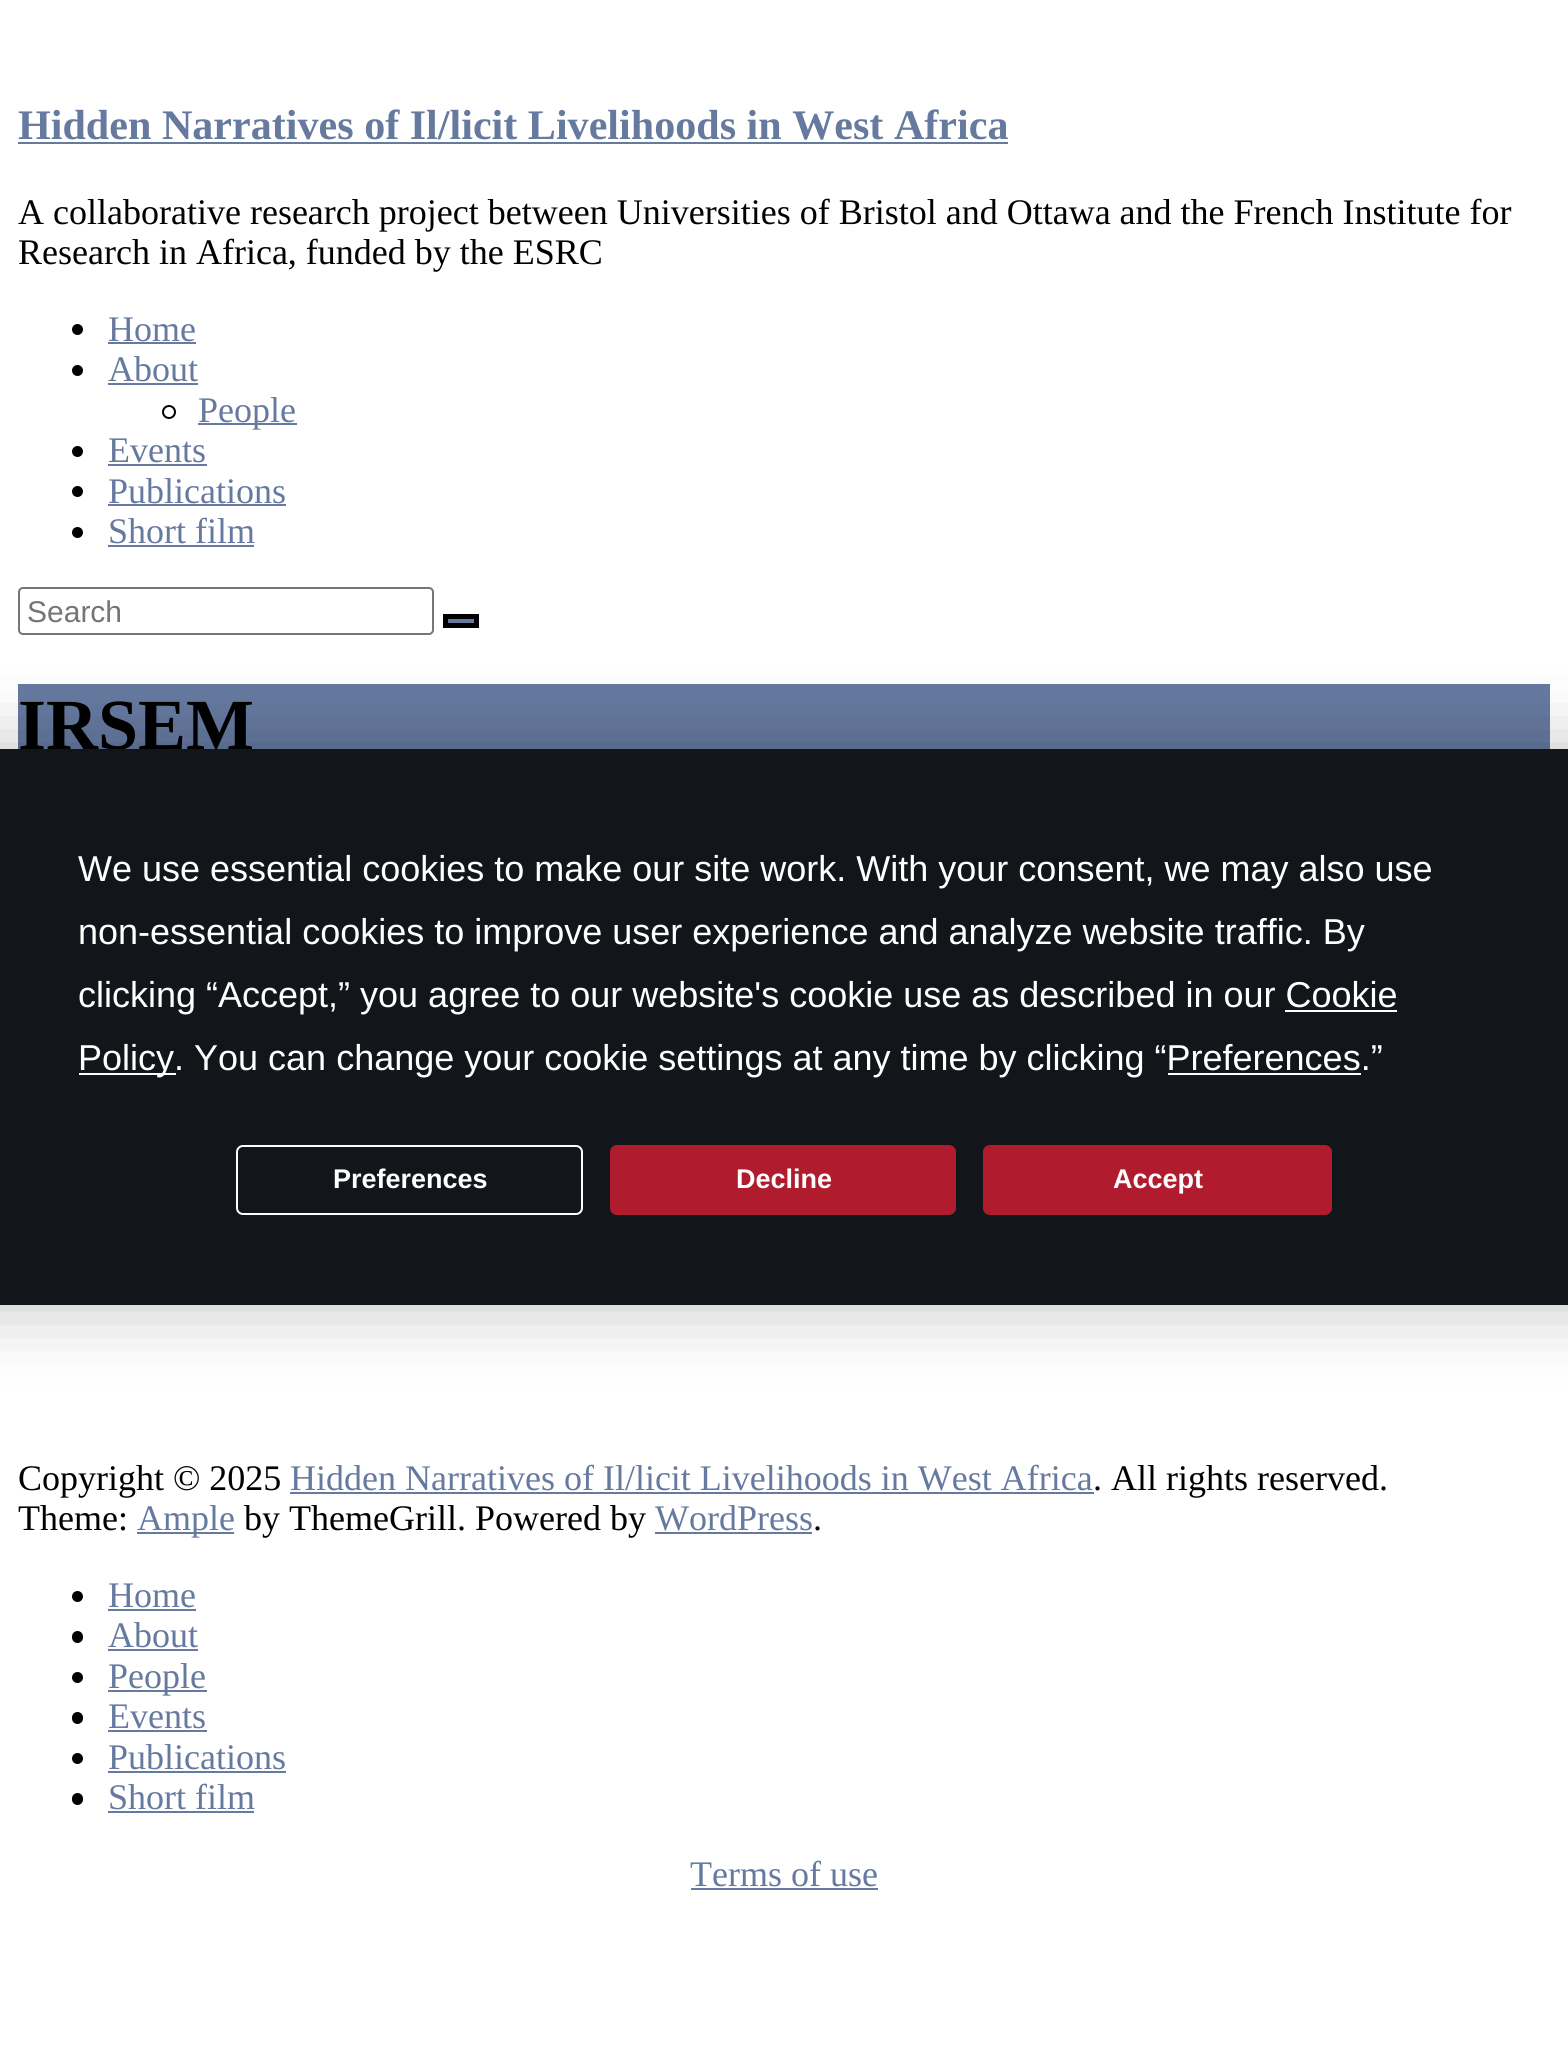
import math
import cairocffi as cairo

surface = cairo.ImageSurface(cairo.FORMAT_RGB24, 1568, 2050)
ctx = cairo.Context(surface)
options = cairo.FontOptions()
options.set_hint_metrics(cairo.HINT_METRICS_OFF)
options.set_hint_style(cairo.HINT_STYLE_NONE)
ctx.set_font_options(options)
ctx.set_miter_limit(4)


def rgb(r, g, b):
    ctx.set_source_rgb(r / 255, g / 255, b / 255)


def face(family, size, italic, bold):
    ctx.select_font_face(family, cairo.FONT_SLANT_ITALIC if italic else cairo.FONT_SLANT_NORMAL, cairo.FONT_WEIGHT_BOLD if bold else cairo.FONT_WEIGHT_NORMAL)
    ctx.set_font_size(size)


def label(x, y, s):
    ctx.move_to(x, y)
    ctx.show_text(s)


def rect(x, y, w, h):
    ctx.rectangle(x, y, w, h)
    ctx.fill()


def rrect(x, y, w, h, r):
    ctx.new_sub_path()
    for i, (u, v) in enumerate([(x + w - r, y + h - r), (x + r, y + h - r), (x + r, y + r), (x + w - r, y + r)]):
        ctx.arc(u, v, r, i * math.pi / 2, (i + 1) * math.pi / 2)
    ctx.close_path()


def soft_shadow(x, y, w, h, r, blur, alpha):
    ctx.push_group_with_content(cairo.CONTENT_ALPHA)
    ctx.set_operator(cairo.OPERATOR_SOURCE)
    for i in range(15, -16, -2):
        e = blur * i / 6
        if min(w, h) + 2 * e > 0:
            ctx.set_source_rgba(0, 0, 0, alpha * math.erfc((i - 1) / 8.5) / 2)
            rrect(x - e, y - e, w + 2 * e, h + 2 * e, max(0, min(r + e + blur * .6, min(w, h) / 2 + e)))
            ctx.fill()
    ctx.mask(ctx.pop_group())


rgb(255, 255, 255)
ctx.paint()
face('Liberation Serif', 42.1, 0, 1)
rgb(102, 122, 160)
label(18, 139, 'Hidden Narratives of Il/licit Livelihoods in West Africa')
rect(18, 142, 990, 2)
face('Liberation Serif', 36, 0, 0)
rgb(0, 0, 0)
label(18, 224, 'A collaborative research project between Universities of Bristol and Ottawa and the French Institute for')
label(18, 264, 'Research in Africa, funded by the ESRC')
ctx.new_path()
ctx.arc(77.5, 329.5, 5.5, 0, 2 * math.pi)
ctx.fill()
rgb(102, 122, 160)
label(108, 341, 'Home')
rect(108, 342, 88, 2)
rgb(0, 0, 0)
ctx.new_path()
ctx.arc(77.5, 370.5, 5.5, 0, 2 * math.pi)
ctx.fill()
rgb(102, 122, 160)
label(108, 381, 'About')
rect(108, 383, 90, 2)
ctx.new_path()
ctx.arc(169, 412, 6, 0, 2 * math.pi)
rgb(0, 0, 0)
ctx.stroke()
rgb(102, 122, 160)
rect(198, 423, 99, 2)
label(198, 422, 'People')
rgb(0, 0, 0)
ctx.new_path()
ctx.arc(77.5, 451.5, 5.5, 0, 2 * math.pi)
ctx.fill()
rgb(102, 122, 160)
label(108, 462, 'Events')
rect(108, 464, 99, 2)
rgb(0, 0, 0)
ctx.new_path()
ctx.arc(77.5, 491.5, 5.5, 0, 2 * math.pi)
ctx.fill()
rgb(102, 122, 160)
label(108, 503, 'Publications')
rect(108, 504, 178, 2)
rgb(0, 0, 0)
ctx.new_path()
ctx.arc(77.5, 532.5, 5.5, 0, 2 * math.pi)
ctx.fill()
rgb(102, 122, 160)
label(108, 543, 'Short film')
rect(108, 545, 146, 2)
rrect(19, 588, 414, 46, 4)
rgb(118, 118, 118)
ctx.stroke()
face('Liberation Sans', 30, 0, 0)
rgb(117, 117, 117)
label(27, 622, 'Search')
rgb(102, 122, 160)
ctx.rectangle(445.5, 616.5, 31, 9)
ctx.fill_preserve()
rgb(0, 0, 0)
ctx.set_line_width(5)
ctx.stroke()
rgb(102, 122, 160)
rect(18, 684, 1532, 65)
face('Liberation Serif', 72, 0, 1)
rgb(0, 0, 0)
label(18, 749, 'IRSEM')
face('Liberation Serif', 36, 0, 0)
label(18, 1490, 'Copyright © 2025')
rgb(102, 122, 160)
label(290, 1490, 'Hidden Narratives of Il/licit Livelihoods in West Africa')
rect(290, 1492, 804, 2)
rgb(0, 0, 0)
label(1093, 1490, '. All rights reserved.')
label(18, 1530, 'Theme:')
rgb(102, 122, 160)
rect(137, 1532, 97, 2)
label(137, 1530, 'Ample')
rgb(0, 0, 0)
label(244, 1530, 'by ThemeGrill. Powered by')
rgb(102, 122, 160)
label(655, 1530, 'WordPress')
rect(655, 1532, 157, 2)
rgb(0, 0, 0)
label(813, 1530, '.')
ctx.new_path()
ctx.arc(77.5, 1596.5, 5.5, 0, 2 * math.pi)
ctx.fill()
rgb(102, 122, 160)
label(108, 1607, 'Home')
rect(108, 1609, 88, 2)
rgb(0, 0, 0)
rrect(72, 1631, 11, 12, 5.5)
ctx.fill()
rgb(102, 122, 160)
label(108, 1647, 'About')
rect(108, 1649, 90, 2)
rgb(0, 0, 0)
ctx.new_path()
ctx.arc(77.5, 1677.5, 5.5, 0, 2 * math.pi)
ctx.fill()
rgb(102, 122, 160)
rect(108, 1690, 99, 2)
label(108, 1688, 'People')
rgb(0, 0, 0)
rrect(72, 1712, 11, 12, 5.5)
ctx.fill()
rgb(102, 122, 160)
label(108, 1728, 'Events')
rect(108, 1730, 99, 2)
rgb(0, 0, 0)
ctx.new_path()
ctx.arc(77.5, 1758.5, 5.5, 0, 2 * math.pi)
ctx.fill()
rgb(102, 122, 160)
label(108, 1769, 'Publications')
rect(108, 1771, 178, 2)
rgb(0, 0, 0)
rrect(72, 1793, 11, 12, 5.5)
ctx.fill()
rgb(102, 122, 160)
label(108, 1809, 'Short film')
rect(108, 1811, 146, 2)
rgb(0, 0, 0)
soft_shadow(-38, 749, 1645, 556, 11, 39.5, 0.25)
rgb(18, 22, 26)
rect(0, 749, 1568, 556)
face('Liberation Sans', 36, 0, 0)
rgb(255, 255, 255)
label(78, 881, 'We use essential cookies to make our site work. With your consent, we may also use')
label(78, 944, 'non-essential cookies to improve user experience and analyze website traffic. By')
label(78, 1007, 'clicking “Accept,” you agree to our website\'s cookie use as described in our Cookie')
rect(79, 1073, 97, 2)
label(78, 1070, 'Policy. You can change your cookie settings at any time by clicking “Preferences.”')
rect(1285, 1010, 112, 2)
rect(1168, 1073, 193, 2)
rrect(237, 1146, 345, 68, 6)
ctx.set_line_width(2)
ctx.stroke()
face('Liberation Sans', 27, 0, 1)
label(333, 1188, 'Preferences')
rgb(176, 28, 46)
rrect(611, 1146, 344, 68, 6)
ctx.fill_preserve()
ctx.stroke()
rgb(255, 255, 255)
label(736, 1188, 'Decline')
rgb(176, 28, 46)
rrect(984, 1146, 347, 68, 6)
ctx.fill_preserve()
ctx.stroke()
rgb(255, 255, 255)
label(1113, 1188, 'Accept')
face('Liberation Serif', 36, 0, 0)
rgb(102, 122, 160)
label(690, 1886, 'Terms of use')
rect(691, 1888, 187, 2)
surface.write_to_png('render.png')
